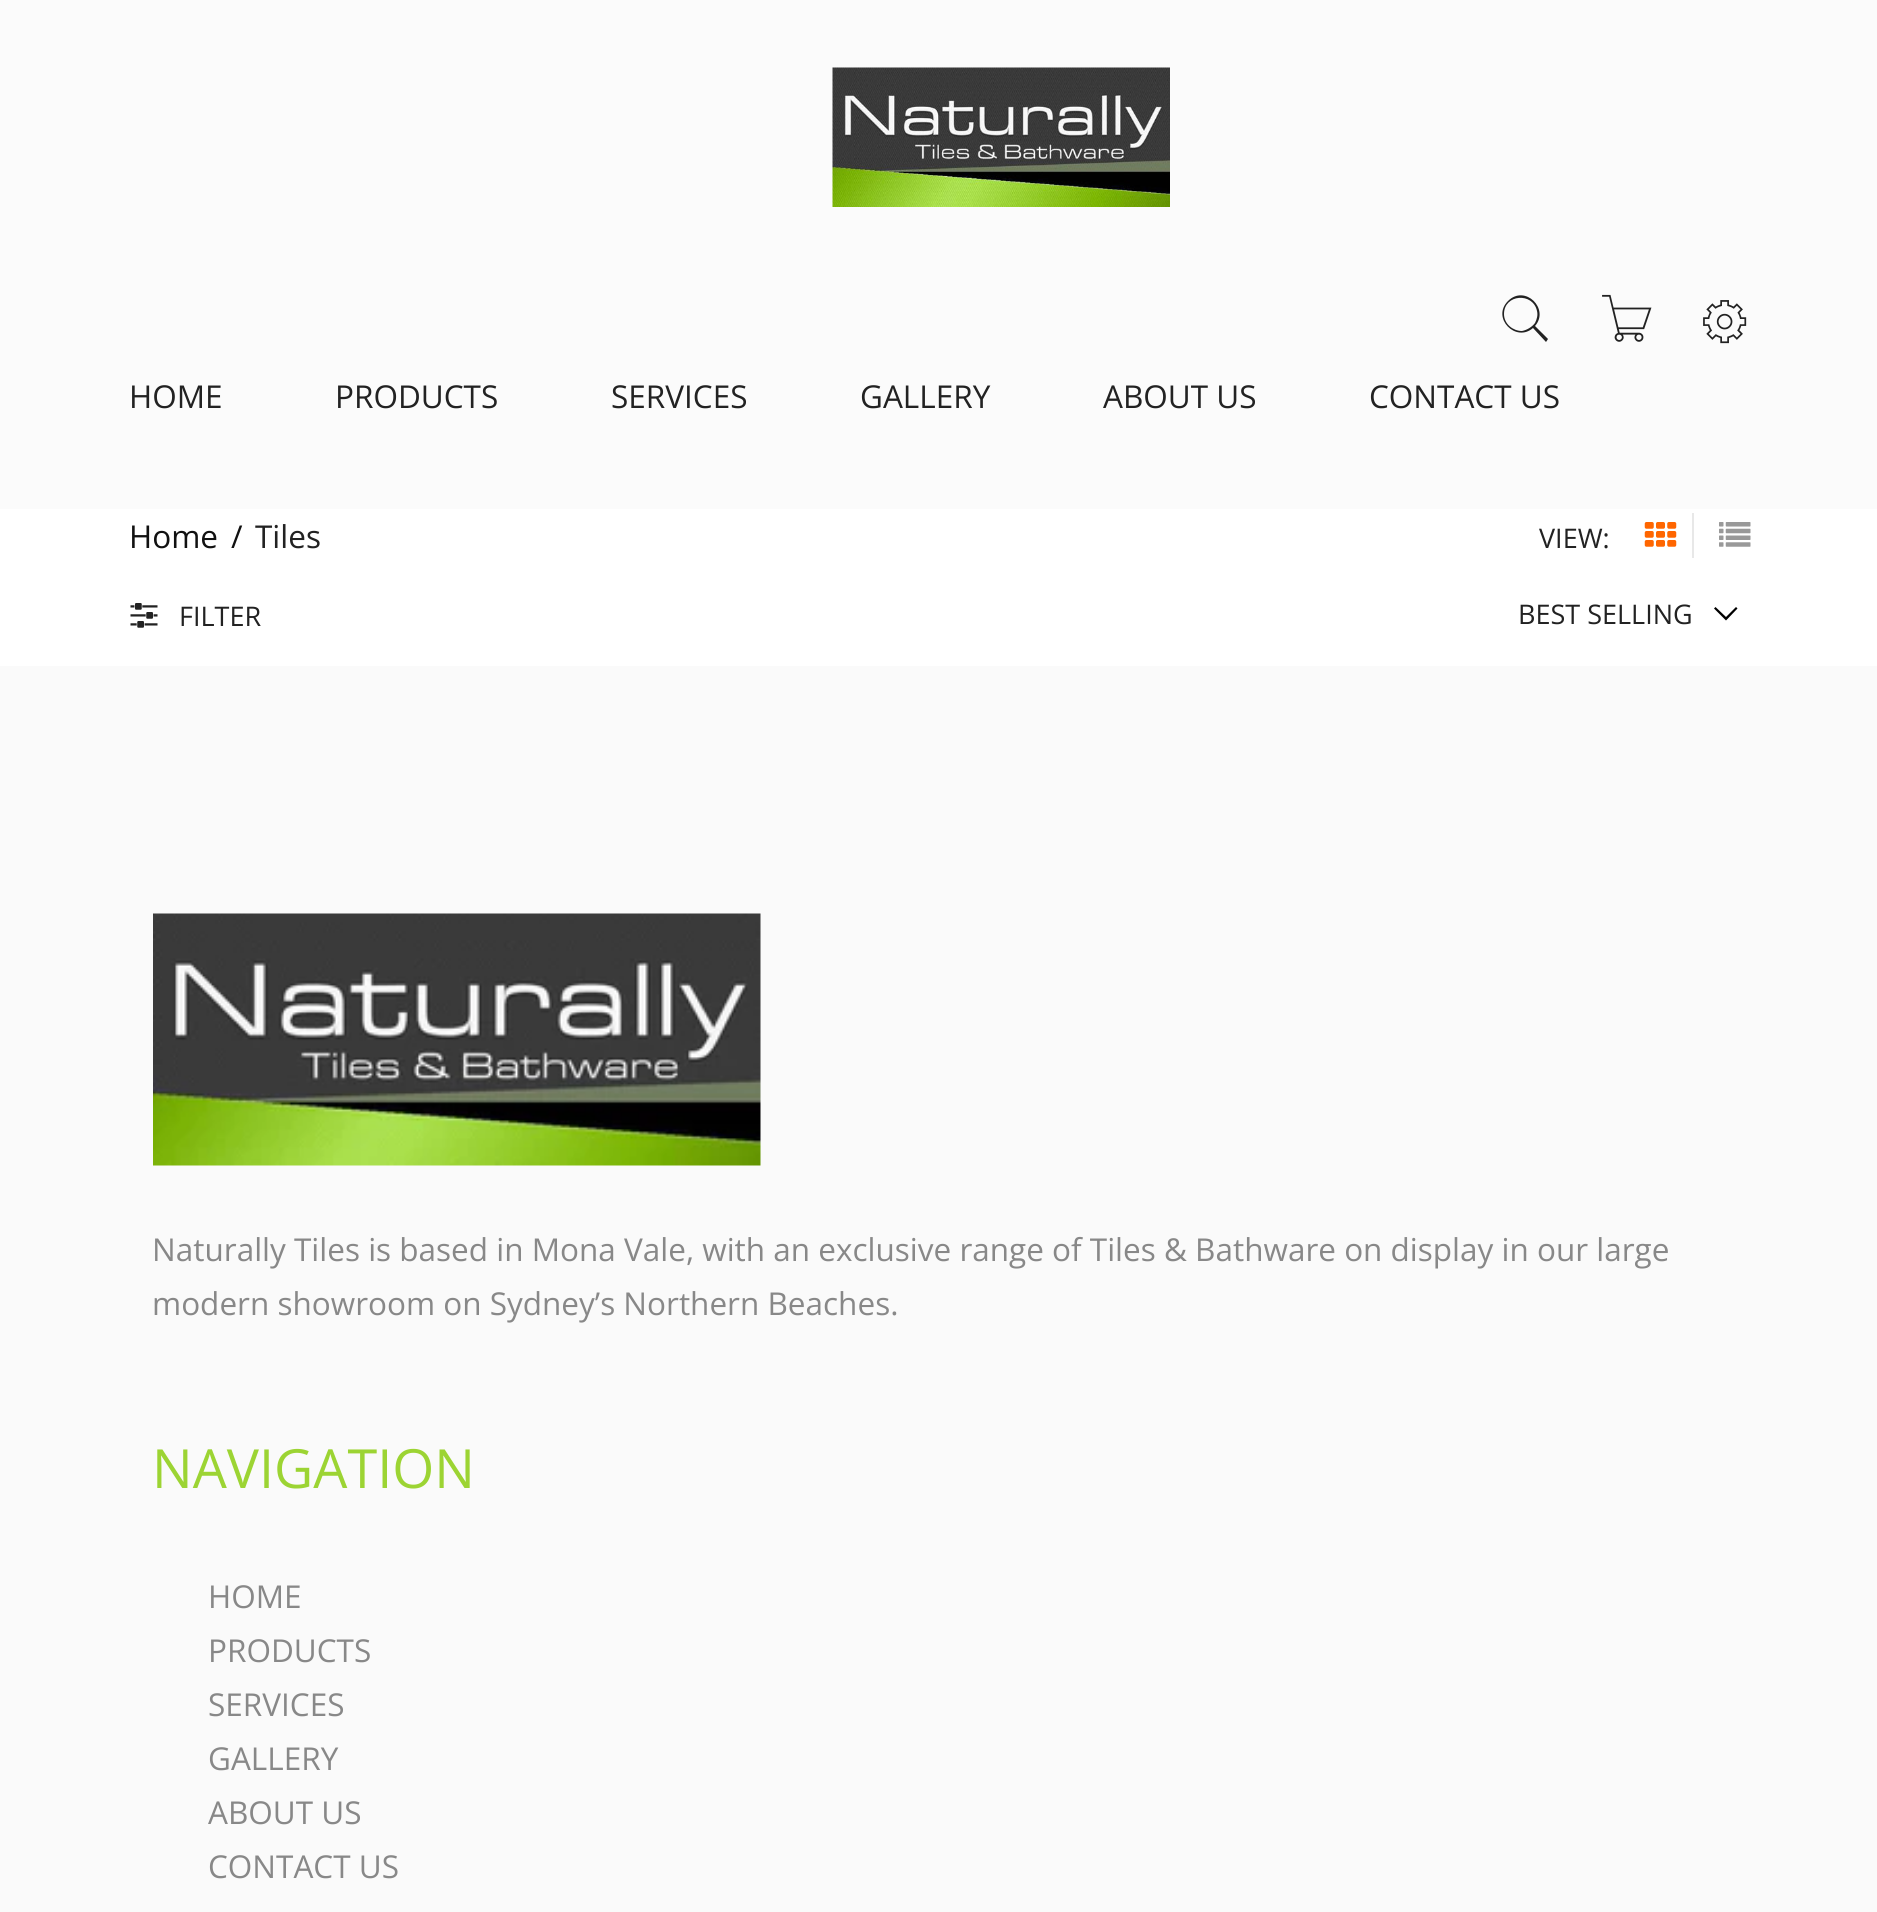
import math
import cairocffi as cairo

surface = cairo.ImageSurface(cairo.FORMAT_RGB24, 1877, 1912)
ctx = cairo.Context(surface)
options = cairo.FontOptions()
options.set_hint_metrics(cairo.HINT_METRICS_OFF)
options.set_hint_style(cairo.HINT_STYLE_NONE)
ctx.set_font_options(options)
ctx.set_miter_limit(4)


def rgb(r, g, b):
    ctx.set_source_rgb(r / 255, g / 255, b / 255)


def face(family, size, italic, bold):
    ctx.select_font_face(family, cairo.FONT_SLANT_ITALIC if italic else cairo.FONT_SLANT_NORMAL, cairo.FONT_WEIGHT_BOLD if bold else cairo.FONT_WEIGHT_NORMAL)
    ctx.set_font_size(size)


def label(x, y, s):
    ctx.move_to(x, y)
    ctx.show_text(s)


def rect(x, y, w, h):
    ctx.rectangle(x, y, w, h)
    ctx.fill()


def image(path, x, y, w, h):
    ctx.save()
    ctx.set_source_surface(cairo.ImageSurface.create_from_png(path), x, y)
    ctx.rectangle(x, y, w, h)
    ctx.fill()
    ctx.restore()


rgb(255, 255, 255)
ctx.paint()
rgb(251, 251, 251)
rect(0, 0, 1877, 509)
image('image0.png', 832, 67, 338, 140)
rgb(34, 34, 34)
ctx.new_path()
ctx.move_to(1548, 339)
ctx.line_to(1535, 326)
ctx.curve_to(1550, 309, 1525, 284, 1508, 301)
ctx.curve_to(1491, 318, 1516, 343, 1533, 328)
ctx.line_to(1546, 342)
ctx.close_path()
ctx.move_to(1504, 314)
ctx.curve_to(1504, 294, 1533, 292, 1537, 311)
ctx.curve_to(1538, 315, 1537, 319, 1535, 323)
ctx.curve_to(1532, 327, 1527, 330, 1522, 331)
ctx.curve_to(1513, 331, 1504, 324, 1504, 314)
ctx.close_path()
ctx.fill()
image('image1.png', 1602, 294, 50, 48)
image('image2.png', 1703, 300, 44, 44)
face('Open Sans', 31.5, 0, 0)
label(129, 408, 'HOME')
label(335, 408, 'PRODUCTS')
label(611, 408, 'SERVICES')
label(860, 408, 'GALLERY')
label(1103, 408, 'ABOUT US')
label(1369, 408, 'CONTACT US')
rgb(17, 17, 17)
label(129, 548, 'Home')
label(231, 548, '/')
rgb(34, 34, 34)
label(255, 548, 'Tiles')
face('Open Sans', 27, 0, 0)
label(1539, 548, 'VIEW:')
rgb(232, 232, 232)
rect(1692, 513, 2, 45)
image('image3.png', 1644, 522, 33, 25)
image('image4.png', 1719, 522, 32, 25)
image('image5.png', 130, 603, 28, 25)
rgb(34, 34, 34)
label(179, 626, 'FILTER')
label(1518, 624, 'BEST SELLING')
rgb(0, 0, 0)
ctx.new_path()
ctx.move_to(1726, 620.5)
ctx.line_to(1714, 608.5)
ctx.line_to(1715.5, 607)
ctx.line_to(1726, 617)
ctx.line_to(1736, 607)
ctx.line_to(1737.5, 608.5)
ctx.close_path()
ctx.fill()
rgb(250, 250, 250)
rect(0, 666, 1877, 1246)
image('image6.png', 153, 913, 608, 253)
face('Open Sans', 31.5, 0, 0)
rgb(136, 136, 136)
label(152, 1261, 'Naturally Tiles is based in Mona Vale, with an exclusive range of Tiles & Bathware on display in our large')
label(152, 1315, 'modern showroom on Sydney’s Northern Beaches.')
face('Open Sans', 54, 0, 0)
rgb(156, 212, 51)
label(152, 1488, 'NAVIGATION')
face('Open Sans', 31.5, 0, 0)
rgb(136, 136, 136)
label(208, 1608, 'HOME')
label(208, 1662, 'PRODUCTS')
label(208, 1716, 'SERVICES')
label(208, 1770, 'GALLERY')
label(208, 1824, 'ABOUT US')
label(208, 1878, 'CONTACT US')
surface.write_to_png('render.png')
